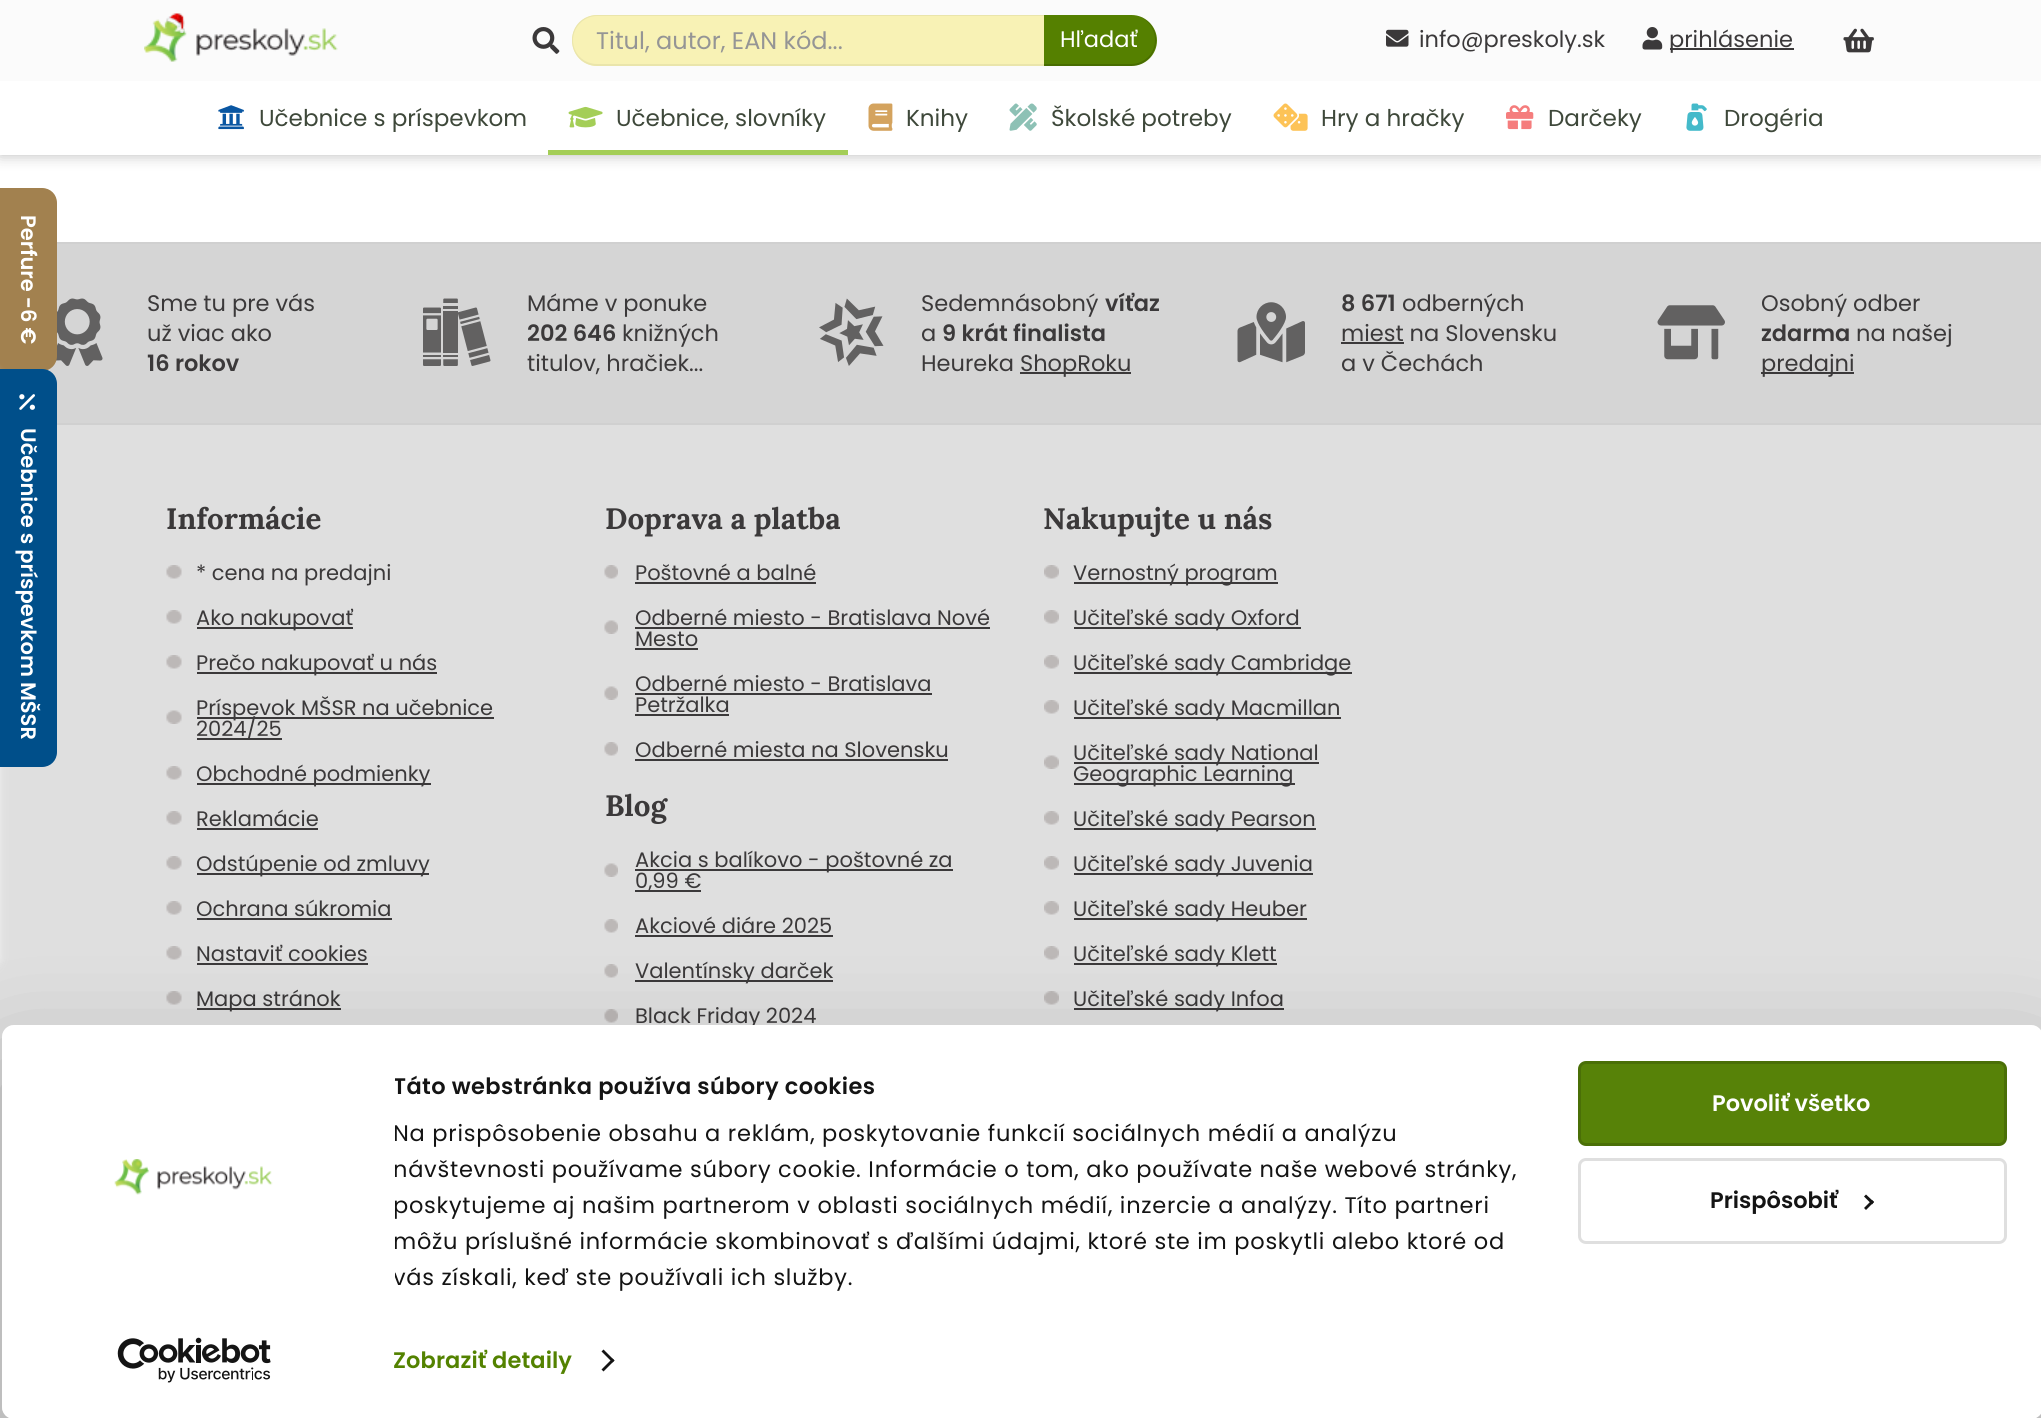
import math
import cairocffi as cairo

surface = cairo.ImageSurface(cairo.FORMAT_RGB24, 2041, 1418)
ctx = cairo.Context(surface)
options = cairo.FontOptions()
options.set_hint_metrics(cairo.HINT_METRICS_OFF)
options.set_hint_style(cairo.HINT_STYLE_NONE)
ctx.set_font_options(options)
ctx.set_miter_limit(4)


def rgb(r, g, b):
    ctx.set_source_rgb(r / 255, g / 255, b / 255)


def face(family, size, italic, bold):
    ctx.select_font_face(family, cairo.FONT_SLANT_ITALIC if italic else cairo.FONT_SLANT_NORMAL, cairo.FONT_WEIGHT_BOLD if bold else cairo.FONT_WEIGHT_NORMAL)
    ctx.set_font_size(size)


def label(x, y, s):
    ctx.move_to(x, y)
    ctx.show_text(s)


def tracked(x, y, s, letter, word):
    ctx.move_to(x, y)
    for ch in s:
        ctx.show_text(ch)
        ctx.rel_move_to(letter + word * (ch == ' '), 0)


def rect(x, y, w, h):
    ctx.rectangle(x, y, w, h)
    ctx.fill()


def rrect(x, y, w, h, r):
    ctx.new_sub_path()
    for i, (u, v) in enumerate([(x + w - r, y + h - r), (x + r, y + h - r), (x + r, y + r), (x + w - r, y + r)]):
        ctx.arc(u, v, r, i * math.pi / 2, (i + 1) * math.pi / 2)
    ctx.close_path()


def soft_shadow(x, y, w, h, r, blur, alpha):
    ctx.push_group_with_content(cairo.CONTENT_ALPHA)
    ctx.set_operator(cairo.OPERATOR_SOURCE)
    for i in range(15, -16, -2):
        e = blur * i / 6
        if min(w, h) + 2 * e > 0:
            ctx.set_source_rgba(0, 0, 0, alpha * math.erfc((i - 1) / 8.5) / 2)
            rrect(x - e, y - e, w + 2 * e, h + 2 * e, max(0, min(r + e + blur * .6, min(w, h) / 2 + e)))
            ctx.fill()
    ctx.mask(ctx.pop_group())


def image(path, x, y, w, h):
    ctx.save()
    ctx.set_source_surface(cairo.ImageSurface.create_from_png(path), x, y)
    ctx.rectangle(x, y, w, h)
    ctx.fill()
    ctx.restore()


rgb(255, 255, 255)
ctx.paint()
rgb(0, 0, 0)
soft_shadow(0, 0, 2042, 155, 0, 7.5, 0.27)
rgb(255, 255, 255)
rect(0, 81, 2041, 74)
rgb(251, 251, 251)
rect(0, 0, 2041, 81)
image('image1.png', 144, 19, 194, 43)
image('image0.png', 166, 13, 19, 20)
image('image2.png', 532, 27, 28, 27)
rgb(248, 242, 181)
ctx.new_path()
ctx.move_to(597.5, 15)
ctx.line_to(1044, 15)
ctx.line_to(1044, 66)
ctx.line_to(597.5, 66)
ctx.curve_to(583.5, 66, 572, 54.5, 572, 40.5)
ctx.curve_to(572, 26.5, 583.5, 15, 597.5, 15)
ctx.close_path()
ctx.fill()
rgb(234, 229, 171)
ctx.set_fill_rule(cairo.FILL_RULE_EVEN_ODD)
ctx.new_path()
ctx.move_to(597, 15)
ctx.line_to(1044, 15)
ctx.line_to(1044, 66)
ctx.line_to(597, 66)
ctx.curve_to(583, 66, 572, 55, 572, 40)
ctx.curve_to(572, 26, 583, 15, 597, 15)
ctx.close_path()
ctx.move_to(597, 16)
ctx.line_to(1044, 16)
ctx.line_to(1044, 64)
ctx.line_to(597, 64)
ctx.curve_to(584, 64, 573, 54, 573, 40)
ctx.curve_to(573, 27, 584, 16, 597, 16)
ctx.close_path()
ctx.fill()
face('Poppins', 24, 0, 0)
rgb(149, 149, 149)
label(596, 49, 'Titul, autor, EAN kód...')
rgb(85, 128, 0)
ctx.new_path()
ctx.move_to(1044, 15)
ctx.line_to(1131.5, 15)
ctx.curve_to(1145.5, 15, 1157, 26.5, 1157, 40.5)
ctx.curve_to(1157, 54.5, 1145.5, 66, 1131.5, 66)
ctx.line_to(1044, 66)
ctx.close_path()
ctx.fill()
ctx.set_source_rgba(0, 0, 0, 0.15)
ctx.new_path()
ctx.move_to(1044, 15)
ctx.line_to(1131, 15)
ctx.curve_to(1145, 15, 1156, 26, 1156, 40)
ctx.curve_to(1156, 55, 1145, 66, 1131, 66)
ctx.line_to(1044, 66)
ctx.close_path()
ctx.move_to(1044, 15)
ctx.line_to(1131, 15)
ctx.curve_to(1144, 15, 1155, 26, 1155, 40)
ctx.curve_to(1155, 54, 1144, 64, 1131, 64)
ctx.line_to(1044, 64)
ctx.close_path()
ctx.fill()
face('Poppins', 22.5, 0, 0)
rgb(255, 255, 255)
label(1060, 47, 'Hľadať')
image('image3.png', 1386, 29, 23, 18)
rgb(59, 57, 58)
label(1419, 47, 'info@preskoly.sk')
image('image4.png', 1642, 27, 21, 23)
rect(1670, 48, 124, 2)
label(1669, 47, 'prihlásenie')
image('image5.png', 1843, 28, 31, 25)
image('image6.png', 218, 105, 26, 25)
face('Poppins', 23.1, 0, 0)
rgb(62, 72, 58)
label(259, 126, 'Učebnice s príspevkom')
rgb(164, 206, 87)
rect(548, 150, 300, 5)
image('image7.png', 568, 106, 35, 22)
rgb(62, 72, 58)
label(616, 126, 'Učebnice, slovníky')
image('image8.png', 868, 103, 25, 28)
label(906, 126, 'Knihy')
image('image9.png', 1009, 103, 28, 28)
label(1051, 126, 'Školské potreby')
image('image10.png', 1273, 103, 35, 28)
label(1321, 126, 'Hry a hračky')
image('image11.png', 1506, 105, 28, 25)
label(1548, 126, 'Darčeky')
image('image12.png', 1686, 103, 21, 28)
label(1724, 126, 'Drogéria')
rgb(213, 213, 213)
rect(47, 244, 1994, 179)
image('image13.png', 56, 298, 47, 68)
rgb(162, 129, 79)
ctx.new_path()
ctx.move_to(0, 188)
ctx.line_to(42, 188)
ctx.curve_to(50.5, 188, 57, 194.5, 57, 203)
ctx.line_to(57, 356)
ctx.curve_to(57, 364.5, 50.5, 371, 42, 371)
ctx.line_to(0, 371)
ctx.close_path()
ctx.fill()
face('Poppins SemiBold', 21, 0, 0)
rgb(255, 255, 255)
ctx.save()
ctx.translate(21, 215)
ctx.rotate(90 * math.pi / 180)
label(0, 0, 'Perfure -6 €')
ctx.restore()
rgb(223, 223, 223)
rect(0, 425, 2041, 993)
rgb(208, 208, 208)
rect(57, 242, 1984, 2)
rect(57, 423, 1984, 2)
face('Poppins', 22.5, 0, 0)
rgb(59, 57, 58)
label(147, 311, 'Sme tu pre vás')
label(147, 341, 'už viac ako')
face('Poppins SemiBold', 22.5, 0, 0)
label(147, 371, '16 rokov')
image('image14.png', 423, 298, 68, 68)
face('Poppins', 22.5, 0, 0)
label(527, 311, 'Máme v ponuke')
face('Poppins SemiBold', 22.5, 0, 0)
label(527, 341, '202 646')
face('Poppins', 22.5, 0, 0)
label(622, 341, 'knižných')
label(527, 371, 'titulov, hračiek...')
image('image15.png', 819, 298, 65, 68)
label(921, 311, 'Sedemnásobný')
face('Poppins SemiBold', 22.5, 0, 0)
label(1105, 311, 'víťaz')
face('Poppins', 22.5, 0, 0)
label(921, 341, 'a')
face('Poppins SemiBold', 22.5, 0, 0)
label(942, 341, '9 krát finalista')
face('Poppins', 22.5, 0, 0)
label(921, 371, 'Heureka')
rect(1020, 372, 111, 2)
label(1020, 371, 'ShopRoku')
image('image16.png', 1237, 302, 68, 61)
face('Poppins SemiBold', 22.5, 0, 0)
label(1341, 311, '8 671')
face('Poppins', 22.5, 0, 0)
label(1402, 311, 'odberných')
label(1341, 341, 'miest na Slovensku')
rect(1341, 342, 63, 2)
label(1341, 371, 'a v Čechách')
image('image17.png', 1657, 305, 68, 55)
label(1761, 311, 'Osobný odber')
face('Poppins SemiBold', 22.5, 0, 0)
label(1761, 341, 'zdarma')
face('Poppins', 22.5, 0, 0)
label(1856, 341, 'na našej')
rect(1761, 372, 93, 2)
label(1761, 371, 'predajni')
face('Lora', 29.5, 0, 1)
label(166, 529, 'Informácie')
image('image18.png', 166, 565, 16, 14)
face('Poppins', 21, 0, 0)
label(196, 580, '* cena na predajni')
image('image18.png', 166, 610, 16, 14)
rect(197, 627, 156, 2)
label(196, 625, 'Ako nakupovať')
image('image18.png', 166, 655, 16, 14)
rect(197, 672, 240, 2)
label(196, 670, 'Prečo nakupovať u nás')
image('image19.png', 166, 710, 16, 14)
rect(197, 717, 297, 2)
label(196, 715, 'Príspevok MŠSR na učebnice')
rect(197, 738, 85, 2)
label(196, 736, '2024/25')
image('image18.png', 166, 766, 16, 14)
rect(197, 783, 234, 2)
label(196, 781, 'Obchodné podmienky')
image('image18.png', 166, 811, 16, 14)
label(196, 826, 'Reklamácie')
rect(197, 828, 121, 2)
image('image18.png', 166, 856, 16, 14)
rect(197, 873, 232, 2)
label(196, 871, 'Odstúpenie od zmluvy')
image('image18.png', 166, 901, 16, 14)
label(196, 916, 'Ochrana súkromia')
rect(197, 918, 195, 2)
image('image18.png', 166, 946, 16, 14)
label(196, 961, 'Nastaviť cookies')
rect(197, 963, 171, 2)
image('image18.png', 166, 991, 16, 14)
rect(197, 1008, 144, 2)
label(196, 1006, 'Mapa stránok')
face('Lora', 29.5, 0, 1)
label(605, 529, 'Doprava a platba')
image('image20.png', 604, 565, 14, 14)
face('Poppins', 21, 0, 0)
label(635, 580, 'Poštovné a balné')
rect(635, 582, 181, 2)
image('image21.png', 604, 620, 14, 14)
label(635, 625, 'Odberné miesto - Bratislava Nové')
rect(635, 627, 355, 2)
label(635, 646, 'Mesto')
rect(635, 648, 63, 2)
image('image21.png', 604, 686, 14, 14)
label(635, 691, 'Odberné miesto - Bratislava')
label(635, 712, 'Petržalka')
rect(635, 693, 297, 2)
rect(635, 714, 94, 2)
image('image20.png', 604, 742, 14, 14)
label(635, 757, 'Odberné miesta na Slovensku')
rect(635, 759, 313, 2)
face('Lora', 29.5, 0, 1)
label(605, 816, 'Blog')
image('image21.png', 604, 863, 14, 14)
rect(635, 869, 318, 2)
face('Poppins', 21, 0, 0)
label(635, 867, 'Akcia s balíkovo - poštovné za')
rect(635, 890, 66, 2)
label(635, 888, '0,99 €')
image('image20.png', 604, 919, 14, 14)
label(635, 933, 'Akciové diáre 2025')
rect(635, 935, 198, 2)
image('image20.png', 604, 964, 14, 14)
rect(635, 980, 198, 2)
label(635, 978, 'Valentínsky darček')
image('image20.png', 604, 1009, 14, 14)
label(635, 1023, 'Black Friday 2024')
face('Lora', 29.5, 0, 1)
label(1043, 529, 'Nakupujte u nás')
image('image22.png', 1044, 565, 15, 14)
rect(1074, 582, 204, 2)
face('Poppins', 21, 0, 0)
label(1073, 580, 'Vernostný program')
image('image22.png', 1044, 610, 15, 14)
rect(1074, 627, 227, 2)
label(1073, 625, 'Učiteľské sady Oxford')
image('image22.png', 1044, 655, 15, 14)
rect(1074, 672, 278, 2)
label(1073, 670, 'Učiteľské sady Cambridge')
image('image22.png', 1044, 700, 15, 14)
rect(1074, 717, 267, 2)
label(1073, 715, 'Učiteľské sady Macmillan')
image('image23.png', 1044, 755, 15, 14)
rect(1074, 762, 245, 2)
label(1073, 760, 'Učiteľské sady National')
rect(1074, 783, 221, 2)
label(1073, 781, 'Geographic Learning')
image('image22.png', 1044, 811, 15, 14)
rect(1074, 828, 242, 2)
label(1073, 826, 'Učiteľské sady Pearson')
image('image22.png', 1044, 856, 15, 14)
rect(1074, 873, 239, 2)
label(1073, 871, 'Učiteľské sady Juvenia')
image('image22.png', 1044, 901, 15, 14)
rect(1074, 918, 233, 2)
label(1073, 916, 'Učiteľské sady Heuber')
image('image22.png', 1044, 946, 15, 14)
rect(1074, 963, 203, 2)
label(1073, 961, 'Učiteľské sady Klett')
image('image22.png', 1044, 991, 15, 14)
rect(1074, 1008, 210, 2)
label(1073, 1006, 'Učiteľské sady Infoa')
rgb(240, 240, 240)
soft_shadow(-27, 369, 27, 600, 15, 4, 1)
rgb(0, 79, 138)
ctx.new_path()
ctx.move_to(0, 369)
ctx.line_to(42, 369)
ctx.curve_to(50.5, 369, 57, 375.5, 57, 384)
ctx.line_to(57, 752)
ctx.curve_to(57, 760.5, 50.5, 767, 42, 767)
ctx.line_to(0, 767)
ctx.close_path()
ctx.fill()
image('image24.png', 19, 394, 16, 16)
face('Poppins SemiBold', 21, 0, 0)
rgb(255, 255, 255)
ctx.save()
ctx.translate(21, 428)
ctx.rotate(90 * math.pi / 180)
label(0, 0, 'Učebnice s príspevkom MŠSR')
ctx.restore()
ctx.save()
ctx.new_path()
ctx.move_to(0, 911)
ctx.line_to(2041, 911)
ctx.line_to(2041, 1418)
ctx.line_to(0, 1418)
ctx.close_path()
ctx.move_to(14, 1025)
ctx.line_to(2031, 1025)
ctx.curve_to(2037.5, 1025, 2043, 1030.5, 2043, 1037)
ctx.line_to(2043, 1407)
ctx.curve_to(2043, 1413.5, 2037.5, 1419, 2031, 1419)
ctx.line_to(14, 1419)
ctx.curve_to(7.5, 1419, 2, 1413.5, 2, 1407)
ctx.line_to(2, 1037)
ctx.curve_to(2, 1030.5, 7.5, 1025, 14, 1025)
ctx.close_path()
ctx.clip()
rgb(0, 0, 0)
soft_shadow(2, 1070, 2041, 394, 12, 52.5, 0.3)
ctx.restore()
rrect(2, 1025, 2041, 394, 12)
ctx.fill()
image('image25.png', 114, 1159, 159, 36)
image('image26.png', 117, 1337, 154, 46)
ctx.save()
ctx.set_fill_rule(cairo.FILL_RULE_WINDING)
ctx.rectangle(395, 1070, 1174, 226)
ctx.clip()
face('Poppins SemiBold', 22.5, 0, 0)
rgb(20, 20, 20)
tracked(393, 1094, 'Táto webstránka používa súbory cookies', 0.4, 0)
face('Poppins', 22.5, 0, 0)
tracked(393, 1141, 'Na prispôsobenie obsahu a reklám, poskytovanie funkcií sociálnych médií a analýzu', 0.75, 0)
tracked(393, 1177, 'návštevnosti používame súbory cookie. Informácie o tom, ako používate naše webové stránky,', 0.75, 0)
tracked(393, 1213, 'poskytujeme aj našim partnerom v oblasti sociálnych médií, inzercie a analýzy. Títo partneri', 0.75, 0)
tracked(393, 1249, 'môžu príslušné informácie skombinovať s ďalšími údajmi, ktoré ste im poskytli alebo ktoré od', 0.75, 0)
tracked(393, 1285, 'vás získali, keď ste používali ich služby.', 0.75, 0)
ctx.restore()
face('Poppins SemiBold', 22.5, 0, 0)
rgb(83, 130, 0)
tracked(393, 1368, 'Zobraziť detaily', 0.1, 0)
rgb(20, 20, 20)
ctx.set_fill_rule(cairo.FILL_RULE_WINDING)
ctx.new_path()
ctx.move_to(603.5, 1349.5)
ctx.line_to(614.5, 1360.5)
ctx.line_to(612.5, 1362.5)
ctx.line_to(601.5, 1351.5)
ctx.close_path()
ctx.fill()
ctx.new_path()
ctx.move_to(612.5, 1358.5)
ctx.line_to(614.5, 1360.5)
ctx.line_to(603.5, 1371.5)
ctx.line_to(601.5, 1369.5)
ctx.close_path()
ctx.fill()
rgb(87, 130, 8)
rrect(1579.5, 1062.5, 426, 82, 6.5)
ctx.fill_preserve()
rgb(74, 111, 7)
ctx.set_line_width(3)
ctx.stroke()
rgb(255, 255, 255)
label(1712, 1111, 'Povoliť všetko')
rrect(1579.5, 1159.5, 426, 83, 6.5)
rgb(223, 223, 223)
ctx.stroke()
rgb(20, 20, 20)
label(1710, 1208, 'Prispôsobiť')
ctx.new_path()
ctx.move_to(1866, 1194.5)
ctx.line_to(1874, 1202)
ctx.line_to(1872, 1204.5)
ctx.line_to(1864, 1196.5)
ctx.close_path()
ctx.fill()
ctx.new_path()
ctx.move_to(1872, 1200)
ctx.line_to(1874, 1202)
ctx.line_to(1866, 1210)
ctx.line_to(1864, 1208)
ctx.close_path()
ctx.fill()
surface.write_to_png('render.png')
